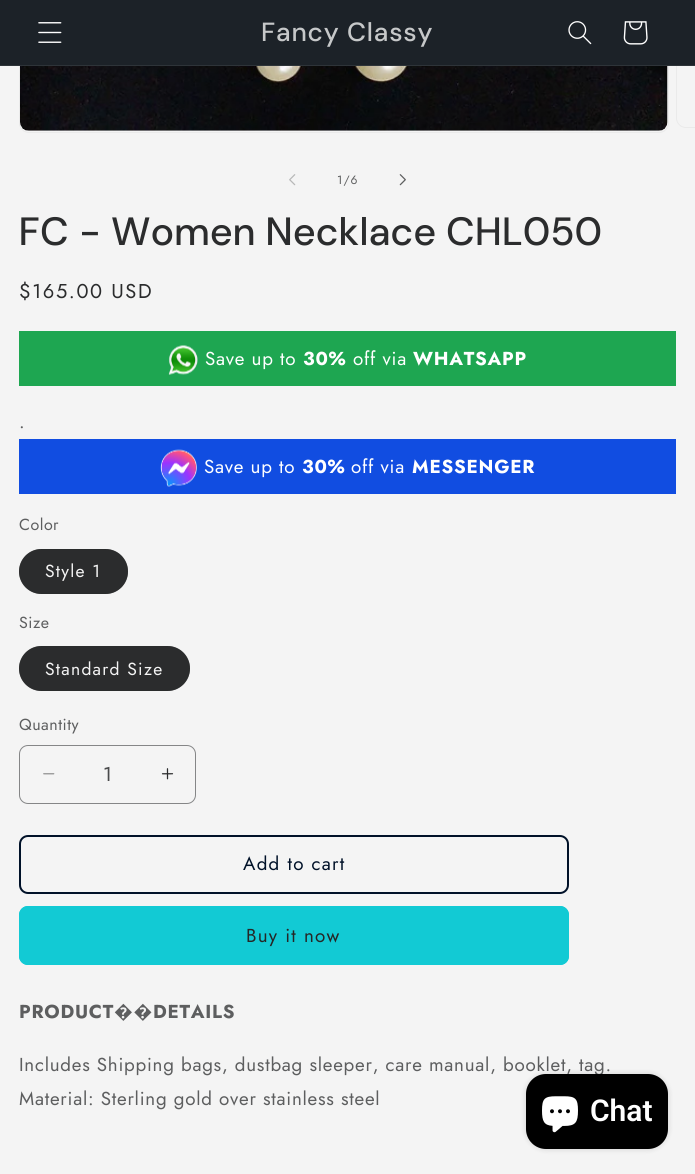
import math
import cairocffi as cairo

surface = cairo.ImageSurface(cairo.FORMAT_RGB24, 695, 1174)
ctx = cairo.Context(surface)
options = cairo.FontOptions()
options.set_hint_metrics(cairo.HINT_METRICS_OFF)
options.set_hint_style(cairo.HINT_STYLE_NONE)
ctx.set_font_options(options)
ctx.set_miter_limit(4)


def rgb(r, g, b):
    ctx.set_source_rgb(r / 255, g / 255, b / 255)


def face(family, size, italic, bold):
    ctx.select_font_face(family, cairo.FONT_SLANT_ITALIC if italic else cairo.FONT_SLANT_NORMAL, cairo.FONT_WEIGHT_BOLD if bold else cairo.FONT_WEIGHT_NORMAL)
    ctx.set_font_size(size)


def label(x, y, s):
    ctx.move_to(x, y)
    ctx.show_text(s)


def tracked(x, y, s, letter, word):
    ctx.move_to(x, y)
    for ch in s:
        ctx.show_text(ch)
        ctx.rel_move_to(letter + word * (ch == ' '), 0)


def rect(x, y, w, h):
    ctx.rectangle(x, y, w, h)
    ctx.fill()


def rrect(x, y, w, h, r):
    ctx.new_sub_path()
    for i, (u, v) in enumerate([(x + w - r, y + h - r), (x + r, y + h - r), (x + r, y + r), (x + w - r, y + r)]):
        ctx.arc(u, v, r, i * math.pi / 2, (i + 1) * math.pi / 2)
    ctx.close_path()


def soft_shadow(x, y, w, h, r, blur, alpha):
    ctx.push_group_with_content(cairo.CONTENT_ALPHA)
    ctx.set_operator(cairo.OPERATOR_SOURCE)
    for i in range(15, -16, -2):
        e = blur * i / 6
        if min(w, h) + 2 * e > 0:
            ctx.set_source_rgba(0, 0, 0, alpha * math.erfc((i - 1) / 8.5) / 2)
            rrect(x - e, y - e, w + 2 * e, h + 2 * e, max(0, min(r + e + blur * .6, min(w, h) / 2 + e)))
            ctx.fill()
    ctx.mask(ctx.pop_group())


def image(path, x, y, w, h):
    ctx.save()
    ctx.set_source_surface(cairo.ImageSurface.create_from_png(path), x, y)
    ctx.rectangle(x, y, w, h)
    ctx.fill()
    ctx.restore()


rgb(244, 244, 244)
ctx.paint()
rrect(19.5, -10.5, 649, 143, 9.5)
rgb(234, 234, 234)
ctx.set_line_width(1)
ctx.stroke()
rrect(676.5, -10.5, 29, 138, 9.5)
ctx.stroke()
rgb(28, 34, 40)
rect(0, 0, 695, 65)
rgb(46, 52, 57)
rect(0, 65, 695, 1)
image('image0.png', 38, 22, 24, 21)
face('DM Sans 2 Medium', 26.25, 0, 0)
rgb(198, 200, 201)
tracked(261, 41, 'Fancy Classy', 0.8, 0)
image('image1.png', 568, 21, 24, 24)
image('image2.png', 623, 21, 25, 24)
image('image3.png', 20, 66, 648, 65)
image('image4.png', 289, 174, 7, 12)
face('Jost', 12, 0, 0)
rgb(93, 94, 95)
tracked(337, 184, '1/6', 1, 0)
image('image5.png', 399, 174, 7, 12)
face('DM Sans Medium', 39.4, 0, 0)
rgb(43, 44, 45)
tracked(19, 245, 'FC - Women Necklace CHL050', 0.8, 0)
face('Jost', 20, 0, 0)
tracked(19, 298, '$165.00 USD', 1.6, 0)
rgb(30, 166, 81)
rect(19, 331, 657, 55)
image('image6.png', 168, 345, 30, 30)
face('Jost', 18.75, 0, 0)
rgb(255, 255, 255)
tracked(205, 365, 'Save up to', 0.75, 0)
face('Jost', 18.75, 0, 1)
tracked(303, 365, '30%', 0.75, 0)
face('Jost', 18.75, 0, 0)
tracked(353, 365, 'off via', 0.75, 0)
face('Jost', 18.75, 0, 1)
tracked(413, 365, 'WHATSAPP', 0.75, 0)
face('Jost', 18.75, 0, 0)
rgb(93, 94, 95)
tracked(19, 428, '.', 0.75, 0)
rgb(17, 77, 225)
rect(19, 439, 657, 55)
image('image7.png', 160, 449, 37, 38)
rgb(255, 255, 255)
tracked(204, 473, 'Save up to', 0.75, 0)
face('Jost', 18.75, 0, 1)
tracked(302, 473, '30%', 0.75, 0)
face('Jost', 18.75, 0, 0)
tracked(351, 473, 'off via', 0.75, 0)
face('Jost', 18.75, 0, 1)
tracked(412, 473, 'MESSENGER', 0.75, 0)
face('Jost', 16, 0, 0)
rgb(93, 94, 95)
tracked(19, 530, 'Color', 0.5, 0)
rgb(43, 44, 45)
rrect(19, 549, 109, 45, 22.5)
ctx.fill()
rrect(19.5, 549.5, 108, 44, 22)
ctx.set_source_rgba(0.169, 0.173, 0.176, 0.55)
ctx.stroke()
face('Jost', 17.5, 0, 0)
rgb(244, 244, 244)
tracked(45, 577, 'Style 1', 1.25, 0)
face('Jost', 16, 0, 0)
rgb(93, 94, 95)
tracked(19, 628, 'Size', 0.5, 0)
rgb(43, 44, 45)
rrect(19, 646, 171, 45, 22.5)
ctx.fill()
rrect(19.5, 646.5, 170, 44, 22)
ctx.set_source_rgba(0.169, 0.173, 0.176, 0.55)
ctx.stroke()
face('Jost', 17.5, 0, 0)
rgb(244, 244, 244)
tracked(45, 675, 'Standard Size', 1.25, 0)
face('Jost', 16, 0, 0)
rgb(93, 94, 95)
tracked(19, 730, 'Quantity', 0.5, 0)
image('image8.png', 43, 773, 12, 2)
image('image9.png', 161, 768, 13, 12)
rrect(19.5, 745.5, 176, 58, 8.5)
rgb(133, 134, 135)
ctx.stroke()
face('Jost', 20, 0, 0)
rgb(73, 74, 75)
label(103, 781, '1')
rrect(20, 836, 548, 57, 8)
rgb(0, 17, 40)
ctx.set_line_width(2)
ctx.stroke()
face('Jost', 18.75, 0, 0)
tracked(243, 870, 'Add to cart', 1.25, 0)
rgb(18, 202, 212)
rrect(19, 906, 550, 59, 9)
ctx.fill()
rrect(19.5, 906.5, 549, 58, 8.5)
ctx.set_line_width(1)
ctx.stroke()
rgb(38, 38, 38)
tracked(246, 942, 'Buy it now', 1.25, 0)
face('Jost', 18.75, 0, 1)
rgb(93, 94, 95)
tracked(19, 1018, 'PRODUCT', 0.75, 0)
face('Noto Sans', 18.75, 0, 1)
tracked(114, 1018, '��', 0.75, 0)
face('Jost', 18.75, 0, 1)
tracked(153, 1018, 'DETAILS', 0.75, 0)
face('Jost', 18.75, 0, 0)
tracked(19, 1071, 'Includes Shipping bags, dustbag sleeper, care manual, booklet, tag.', 0.75, 0)
tracked(19, 1105, 'Material: Sterling gold over stainless steel', 0.75, 0)
rgb(0, 0, 0)
soft_shadow(526, 1074, 142, 75, 20, 3, 0.15)
rgb(0, 0, 0)
rrect(526, 1074, 142, 75, 20)
ctx.fill()
image('image10.png', 542, 1096, 36, 37)
face('Roboto SemiBold', 30, 0, 0)
rgb(255, 255, 255)
label(590, 1121, 'Chat')
surface.write_to_png('render.png')
